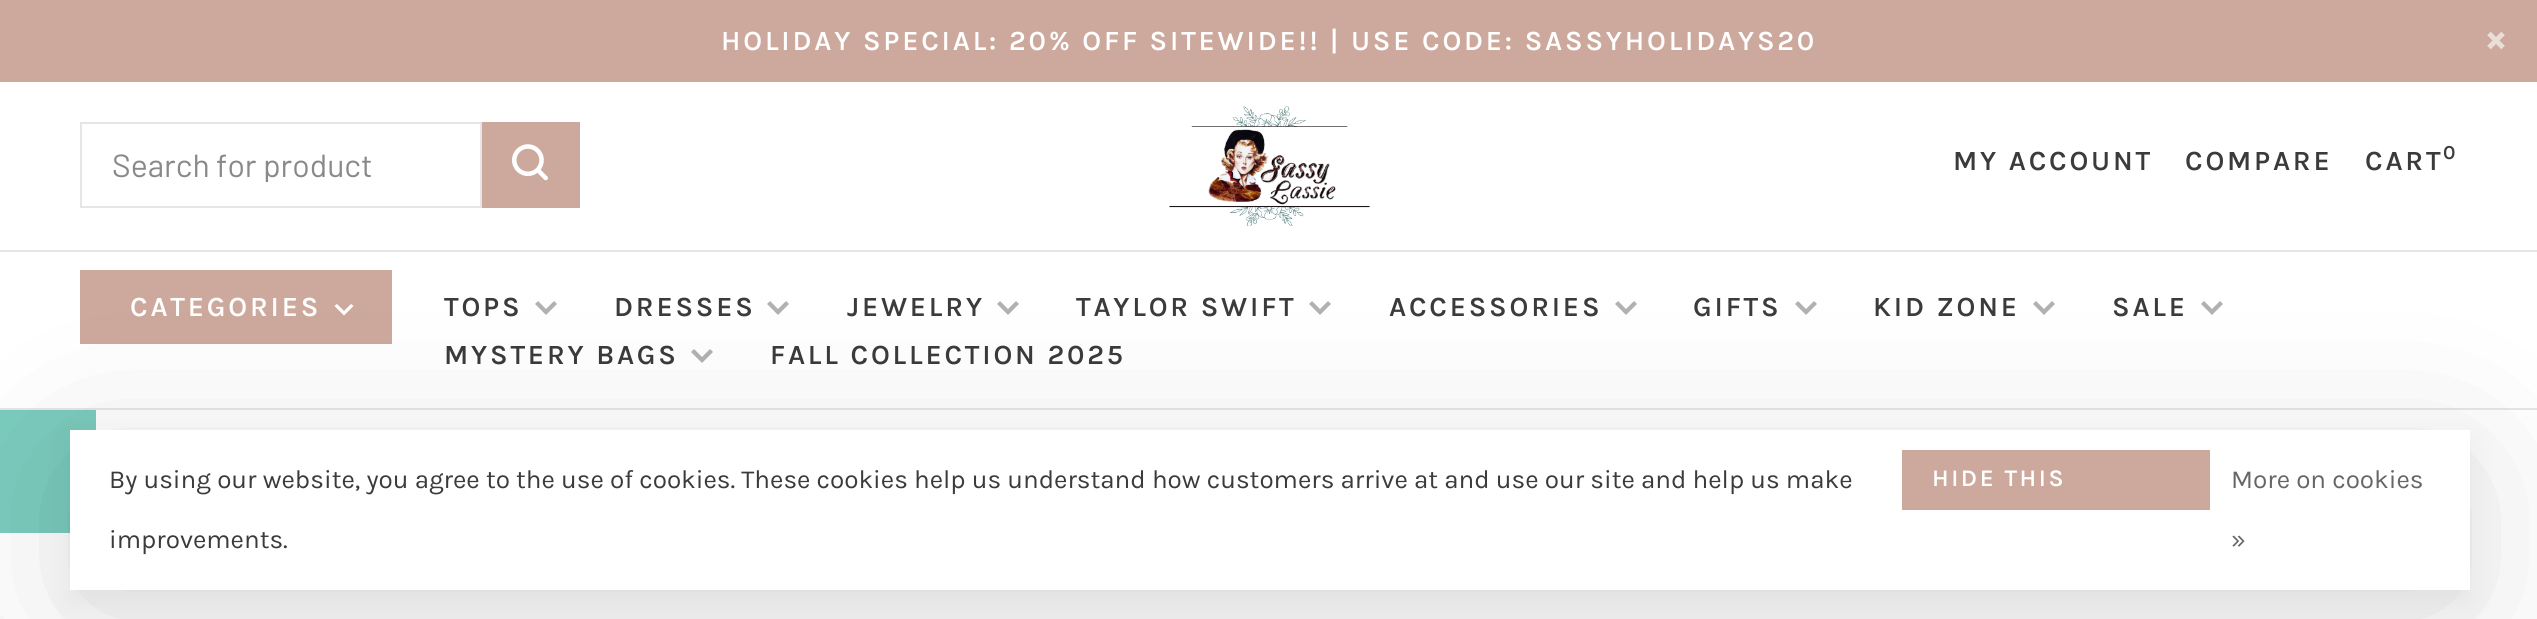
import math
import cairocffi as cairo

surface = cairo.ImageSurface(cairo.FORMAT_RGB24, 2537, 619)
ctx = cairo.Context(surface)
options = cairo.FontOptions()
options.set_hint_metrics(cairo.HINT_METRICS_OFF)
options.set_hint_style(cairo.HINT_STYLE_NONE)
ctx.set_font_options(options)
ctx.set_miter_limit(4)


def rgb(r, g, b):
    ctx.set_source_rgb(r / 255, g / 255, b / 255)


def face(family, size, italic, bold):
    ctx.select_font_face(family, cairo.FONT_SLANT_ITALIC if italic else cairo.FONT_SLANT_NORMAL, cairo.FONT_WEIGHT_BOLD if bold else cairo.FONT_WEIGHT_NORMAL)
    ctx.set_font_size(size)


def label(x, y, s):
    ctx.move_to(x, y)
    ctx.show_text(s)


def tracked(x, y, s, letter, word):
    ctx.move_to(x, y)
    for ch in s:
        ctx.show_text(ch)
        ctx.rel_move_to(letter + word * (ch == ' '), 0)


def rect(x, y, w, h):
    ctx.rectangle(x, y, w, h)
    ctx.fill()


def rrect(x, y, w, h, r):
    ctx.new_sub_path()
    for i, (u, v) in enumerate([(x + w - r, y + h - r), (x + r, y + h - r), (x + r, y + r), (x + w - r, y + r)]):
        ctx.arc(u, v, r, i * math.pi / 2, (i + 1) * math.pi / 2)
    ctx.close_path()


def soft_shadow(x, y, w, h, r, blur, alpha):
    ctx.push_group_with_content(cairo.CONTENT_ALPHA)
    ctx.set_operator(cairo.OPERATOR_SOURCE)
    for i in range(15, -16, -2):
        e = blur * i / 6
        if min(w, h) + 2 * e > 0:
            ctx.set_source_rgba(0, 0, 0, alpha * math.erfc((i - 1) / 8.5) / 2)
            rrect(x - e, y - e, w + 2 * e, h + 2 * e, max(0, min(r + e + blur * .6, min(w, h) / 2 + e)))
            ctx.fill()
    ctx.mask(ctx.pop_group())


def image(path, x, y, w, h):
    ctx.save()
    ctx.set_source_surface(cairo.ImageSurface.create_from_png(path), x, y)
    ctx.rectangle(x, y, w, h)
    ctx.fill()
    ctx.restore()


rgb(255, 255, 255)
ctx.paint()
rgb(123, 204, 190)
ctx.new_path()
ctx.move_to(0, 533)
ctx.line_to(0, 209)
ctx.line_to(80, 209)
ctx.curve_to(89, 209, 96, 216, 96, 225)
ctx.line_to(96, 517)
ctx.curve_to(96, 526, 89, 533, 80, 533)
ctx.close_path()
ctx.fill()
rgb(205, 169, 157)
rect(0, 0, 2537, 82)
face('Karla SemiBold', 28, 0, 0)
rgb(255, 255, 255)
tracked(721, 50, 'HOLIDAY SPECIAL: 20% OFF SITEWIDE!! | USE CODE: SASSYHOLIDAYS20', 2.8, 0)
image('image0.png', 2487, 31, 18, 19)
rect(0, 209, 96, 41)
rgb(230, 230, 230)
rect(0, 250, 2537, 2)
ctx.rectangle(81, 123, 400, 84)
ctx.stroke()
ctx.save()
ctx.rectangle(112, 144, 338, 38)
ctx.clip()
face('Barlow', 32, 0, 0)
rgb(137, 137, 137)
label(112, 177, 'Search for product')
ctx.restore()
rgb(205, 169, 157)
rect(482, 122, 98, 86)
image('image1.png', 512, 144, 36, 37)
image('image2.png', 1169, 106, 201, 120)
rgb(59, 59, 59)
tracked(1953, 170, 'MY ACCOUNT', 2.8, 0)
tracked(2185, 170, 'COMPARE', 2.8, 0)
tracked(2365, 170, 'CART', 2.8, 0)
face('Karla SemiBold', 20, 0, 0)
tracked(2443, 159, '0', 2.8, 0)
rgb(255, 255, 255)
rect(0, 252, 96, 156)
rgb(230, 230, 230)
rect(0, 408, 2537, 2)
rgb(205, 169, 157)
rect(80, 270, 312, 74)
face('Karla SemiBold', 28, 0, 0)
rgb(255, 255, 255)
tracked(130, 316, 'CATEGORIES', 2.8, 0)
ctx.new_path()
ctx.move_to(344, 315.5)
ctx.line_to(334.5, 306)
ctx.line_to(337, 304)
ctx.line_to(344, 311)
ctx.line_to(351, 304)
ctx.line_to(353.5, 306)
ctx.close_path()
ctx.fill()
rgb(59, 59, 59)
tracked(444, 316, 'TOPS', 2.8, 0)
rgb(177, 177, 177)
ctx.new_path()
ctx.move_to(546, 315)
ctx.line_to(535, 304)
ctx.line_to(538, 301)
ctx.line_to(546, 309)
ctx.line_to(554, 301)
ctx.line_to(557, 304)
ctx.close_path()
ctx.fill()
rgb(59, 59, 59)
tracked(614, 316, 'DRESSES', 2.8, 0)
rgb(177, 177, 177)
ctx.new_path()
ctx.move_to(778, 315)
ctx.line_to(767, 304)
ctx.line_to(770, 301)
ctx.line_to(778, 309)
ctx.line_to(786, 301)
ctx.line_to(789, 304)
ctx.close_path()
ctx.fill()
rgb(59, 59, 59)
tracked(847, 316, 'JEWELRY', 2.8, 0)
rgb(177, 177, 177)
ctx.new_path()
ctx.move_to(1008, 315)
ctx.line_to(997, 304)
ctx.line_to(1000, 301)
ctx.line_to(1008, 309)
ctx.line_to(1016, 301)
ctx.line_to(1019, 304)
ctx.close_path()
ctx.fill()
rgb(59, 59, 59)
tracked(1076, 316, 'TAYLOR SWIFT', 2.8, 0)
rgb(177, 177, 177)
ctx.new_path()
ctx.move_to(1320, 315)
ctx.line_to(1309, 304)
ctx.line_to(1312, 301)
ctx.line_to(1320, 309)
ctx.line_to(1328, 301)
ctx.line_to(1331, 304)
ctx.close_path()
ctx.fill()
rgb(59, 59, 59)
tracked(1389, 316, 'ACCESSORIES', 2.8, 0)
rgb(177, 177, 177)
ctx.new_path()
ctx.move_to(1626, 315)
ctx.line_to(1615, 304)
ctx.line_to(1618, 301)
ctx.line_to(1626, 309)
ctx.line_to(1634, 301)
ctx.line_to(1637, 304)
ctx.close_path()
ctx.fill()
rgb(59, 59, 59)
tracked(1693, 316, 'GIFTS', 2.8, 0)
rgb(177, 177, 177)
ctx.new_path()
ctx.move_to(1806, 315)
ctx.line_to(1795, 304)
ctx.line_to(1798, 301)
ctx.line_to(1806, 309)
ctx.line_to(1814, 301)
ctx.line_to(1817, 304)
ctx.close_path()
ctx.fill()
rgb(59, 59, 59)
tracked(1873, 316, 'KID ZONE', 2.8, 0)
rgb(177, 177, 177)
ctx.new_path()
ctx.move_to(2044, 315)
ctx.line_to(2033, 304)
ctx.line_to(2036, 301)
ctx.line_to(2044, 309)
ctx.line_to(2052, 301)
ctx.line_to(2055, 304)
ctx.close_path()
ctx.fill()
rgb(59, 59, 59)
tracked(2112, 316, 'SALE', 2.8, 0)
rgb(177, 177, 177)
ctx.new_path()
ctx.move_to(2212, 315)
ctx.line_to(2201, 304)
ctx.line_to(2204, 301)
ctx.line_to(2212, 309)
ctx.line_to(2220, 301)
ctx.line_to(2223, 304)
ctx.close_path()
ctx.fill()
rgb(59, 59, 59)
tracked(444, 364, 'MYSTERY BAGS', 2.8, 0)
rgb(177, 177, 177)
ctx.new_path()
ctx.move_to(702, 363)
ctx.line_to(691, 352)
ctx.line_to(694, 349)
ctx.line_to(702, 357)
ctx.line_to(710, 349)
ctx.line_to(713, 352)
ctx.close_path()
ctx.fill()
rgb(59, 59, 59)
tracked(770, 364, 'FALL COLLECTION 2025', 2.8, 0)
rgb(0, 0, 0)
soft_shadow(70, 442, 2400, 160, 0, 15, 0.05)
soft_shadow(82, 470, 2376, 136, 0, 86, 0.15)
rgb(255, 255, 255)
rect(70, 430, 2400, 160)
face('Karla', 26, 0, 0)
rgb(59, 59, 59)
label(109, 488, 'By using our website, you agree to the use of cookies. These cookies help us understand how customers arrive at and use our site and help us make')
rgb(205, 169, 157)
rect(1902, 450, 308, 60)
face('Karla SemiBold', 24, 0, 0)
rgb(255, 255, 255)
tracked(1932, 486, 'HIDE THIS', 2.5, 0)
face('Karla', 26, 0, 0)
rgb(102, 102, 102)
label(2231, 488, 'More on cookies')
label(2231, 548, '»')
rgb(59, 59, 59)
label(109, 548, 'improvements.')
rgb(245, 245, 245)
rect(0, 616, 4, 3)
surface.write_to_png('render.png')
